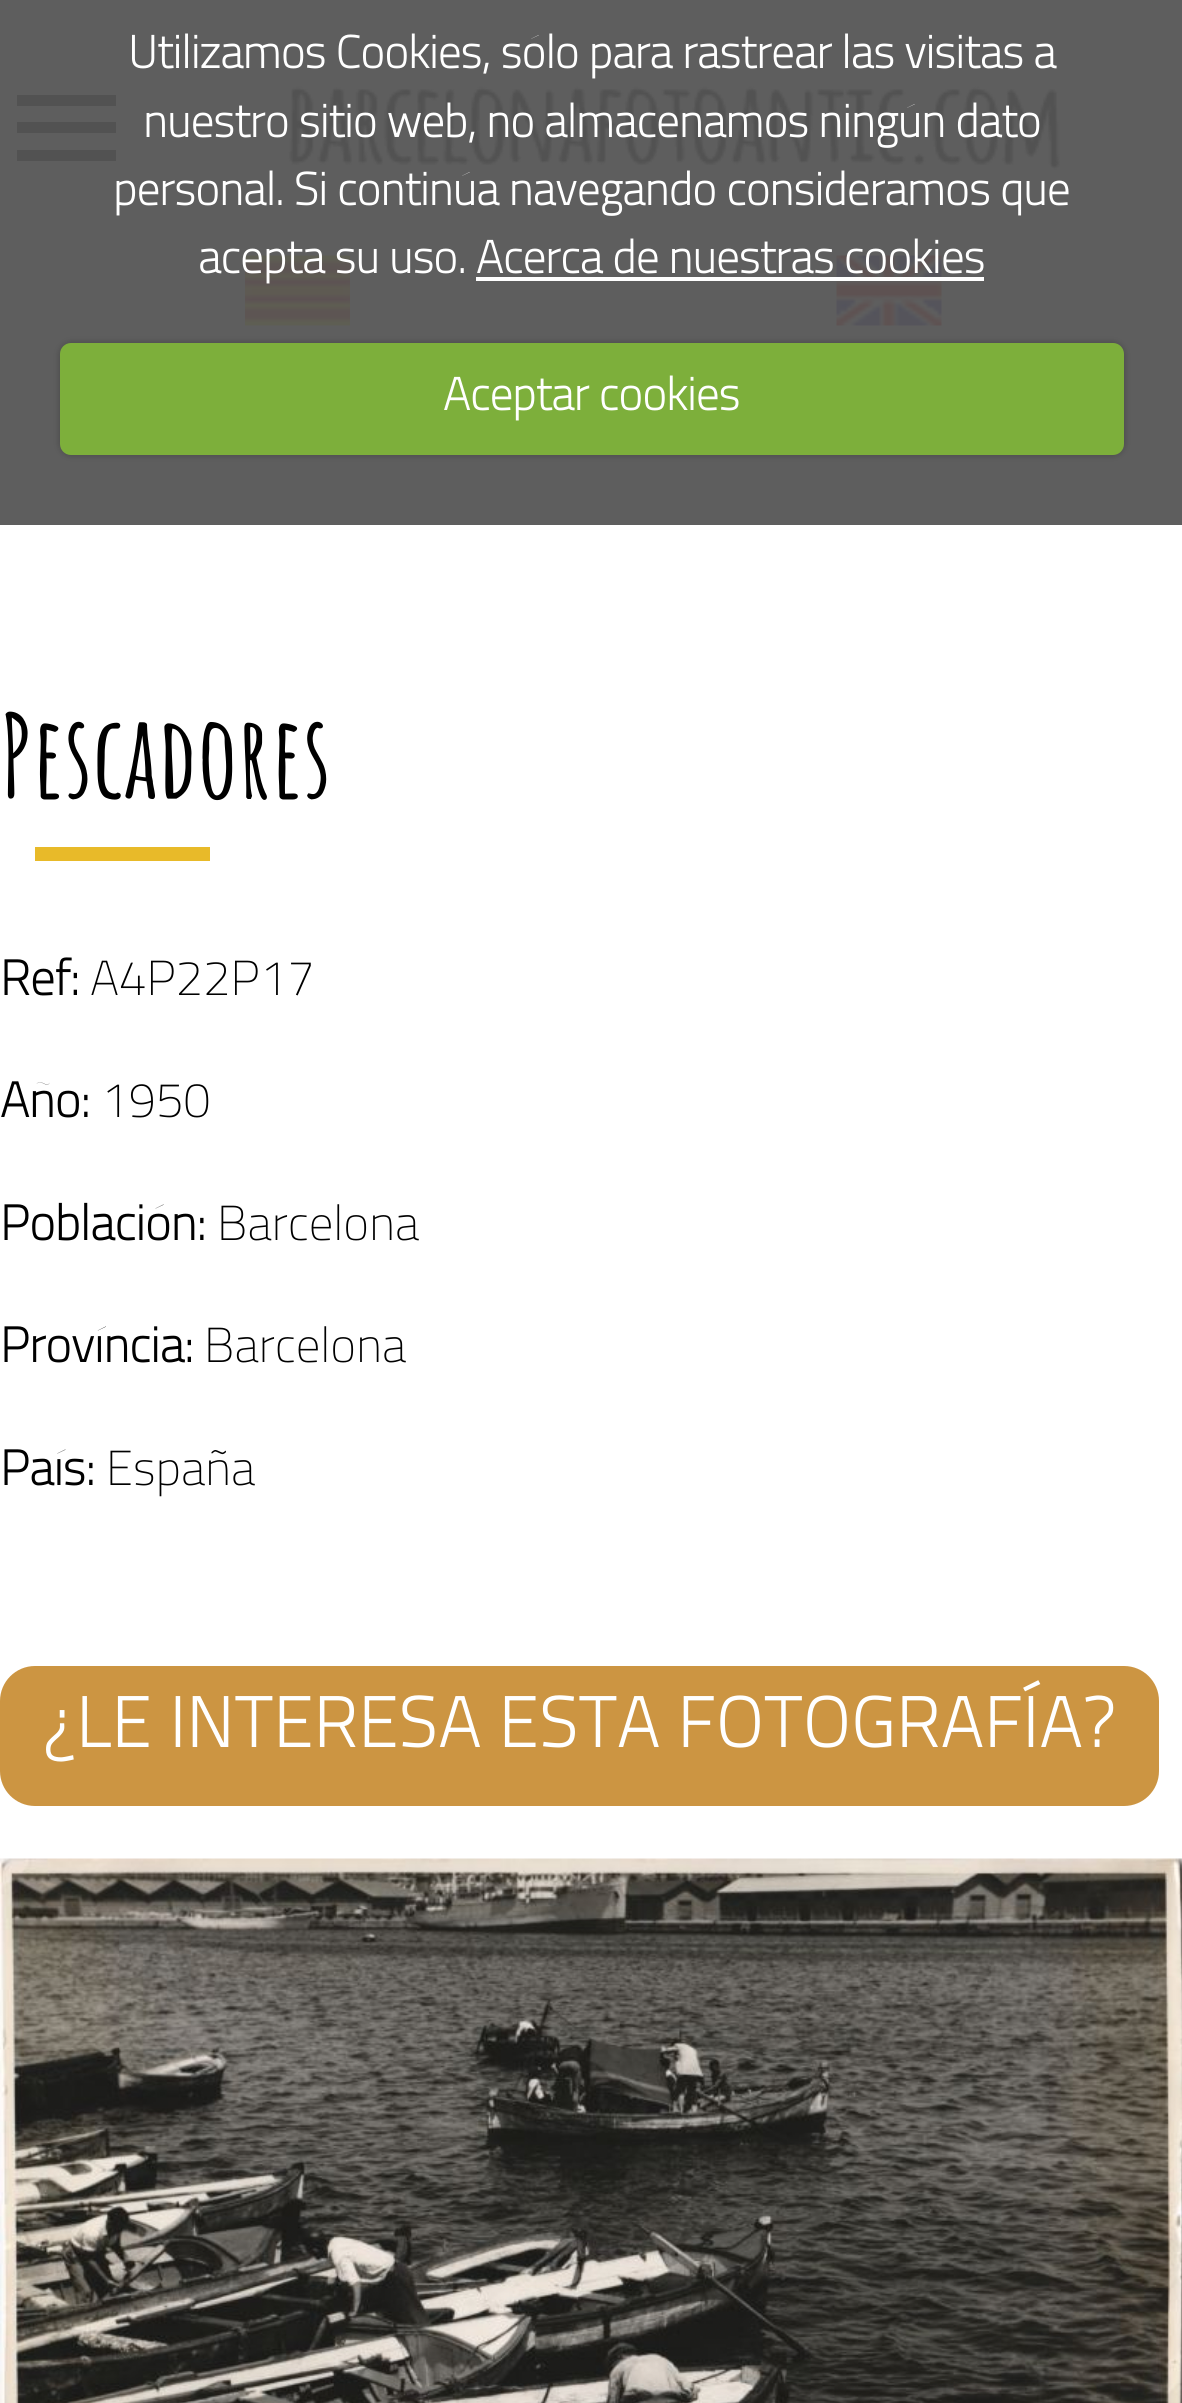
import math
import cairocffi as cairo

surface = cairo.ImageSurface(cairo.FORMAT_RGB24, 1182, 2403)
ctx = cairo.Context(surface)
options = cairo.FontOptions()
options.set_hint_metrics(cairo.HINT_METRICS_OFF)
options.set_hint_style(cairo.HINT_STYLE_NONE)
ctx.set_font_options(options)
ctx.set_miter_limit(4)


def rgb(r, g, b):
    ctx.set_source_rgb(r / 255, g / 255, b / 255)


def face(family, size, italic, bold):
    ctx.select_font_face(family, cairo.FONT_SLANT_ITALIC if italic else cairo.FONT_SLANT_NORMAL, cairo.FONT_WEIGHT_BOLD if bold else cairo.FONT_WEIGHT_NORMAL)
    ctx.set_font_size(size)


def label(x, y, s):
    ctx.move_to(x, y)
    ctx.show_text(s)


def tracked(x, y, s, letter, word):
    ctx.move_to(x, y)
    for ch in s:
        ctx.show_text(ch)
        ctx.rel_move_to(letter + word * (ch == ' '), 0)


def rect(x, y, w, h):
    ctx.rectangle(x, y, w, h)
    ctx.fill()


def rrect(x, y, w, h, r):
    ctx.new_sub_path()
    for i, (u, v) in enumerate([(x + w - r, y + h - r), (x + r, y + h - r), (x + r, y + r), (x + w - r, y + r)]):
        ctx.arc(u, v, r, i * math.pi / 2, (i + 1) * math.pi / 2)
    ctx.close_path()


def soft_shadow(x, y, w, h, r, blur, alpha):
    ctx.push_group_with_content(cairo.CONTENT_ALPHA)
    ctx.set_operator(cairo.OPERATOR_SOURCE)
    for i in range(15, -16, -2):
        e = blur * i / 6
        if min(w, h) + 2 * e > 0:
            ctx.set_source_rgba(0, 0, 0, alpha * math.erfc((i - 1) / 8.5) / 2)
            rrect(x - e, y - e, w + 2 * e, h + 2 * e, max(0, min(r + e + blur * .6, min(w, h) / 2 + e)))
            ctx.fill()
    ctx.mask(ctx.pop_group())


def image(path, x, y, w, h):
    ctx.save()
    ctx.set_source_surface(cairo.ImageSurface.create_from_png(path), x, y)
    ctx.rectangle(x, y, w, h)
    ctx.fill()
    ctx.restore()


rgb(255, 255, 255)
ctx.paint()
rgb(94, 94, 94)
rect(0, 0, 1182, 525)
rgb(82, 82, 82)
ctx.new_path()
ctx.move_to(17, 161)
ctx.line_to(116, 161)
ctx.line_to(116, 150)
ctx.line_to(17, 150)
ctx.close_path()
ctx.move_to(17, 133)
ctx.line_to(116, 133)
ctx.line_to(116, 122)
ctx.line_to(17, 122)
ctx.close_path()
ctx.move_to(17, 95)
ctx.line_to(17, 106)
ctx.line_to(116, 106)
ctx.line_to(116, 95)
ctx.close_path()
ctx.fill()
image('image0.png', 288, 86, 772, 84)
image('image1.png', 245, 255, 105, 71)
image('image2.png', 836, 255, 106, 71)
face('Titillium', 45.5, 0, 1)
rgb(255, 255, 255)
label(128, 68, 'Utilizamos Cookies, sólo para rastrear las visitas a')
label(143, 137, 'nuestro sitio web, no almacenamos ningún dato')
label(113, 205, 'personal. Si continúa navegando consideramos que')
label(198, 273, 'acepta su uso. Acerca de nuestras cookies')
rect(476, 277, 508, 4)
rgb(0, 0, 0)
soft_shadow(60, 343, 1064, 112, 11, 3.5, 0.25)
rgb(125, 175, 59)
rrect(60, 343, 1064, 112, 11)
ctx.fill()
rgb(255, 255, 255)
label(443, 410, 'Aceptar cookies')
face('Amatic SC', 113, 0, 1)
rgb(0, 0, 0)
label(0, 798, 'Pescadores')
rgb(232, 186, 41)
rect(35, 847, 175, 14)
face('Titillium', 49, 0, 1)
rgb(0, 0, 0)
label(0, 995, 'Ref:')
face('Titillium Thin', 49, 0, 0)
label(90, 995, 'A4P22P17')
face('Titillium', 49, 0, 1)
label(0, 1117, 'Año:')
face('Titillium Thin', 49, 0, 0)
label(101, 1117, '1950')
face('Titillium', 49, 0, 1)
label(0, 1240, 'Población:')
face('Titillium Thin', 49, 0, 0)
label(217, 1240, 'Barcelona')
face('Titillium', 49, 0, 1)
label(0, 1362, 'Província:')
face('Titillium Thin', 49, 0, 0)
label(204, 1362, 'Barcelona')
face('Titillium', 49, 0, 1)
label(0, 1485, 'País:')
face('Titillium Thin', 49, 0, 0)
label(106, 1485, 'España')
rgb(204, 149, 66)
rrect(0, 1666, 1159, 140, 35)
ctx.fill()
face('Titillium', 70, 0, 1)
rgb(255, 255, 255)
tracked(43, 1747, '¿LE INTERESA ESTA FOTOGRAFÍA?', 1.75, 0)
image('image3.png', 0, 1858, 1182, 545)
surface.write_to_png('render.png')
